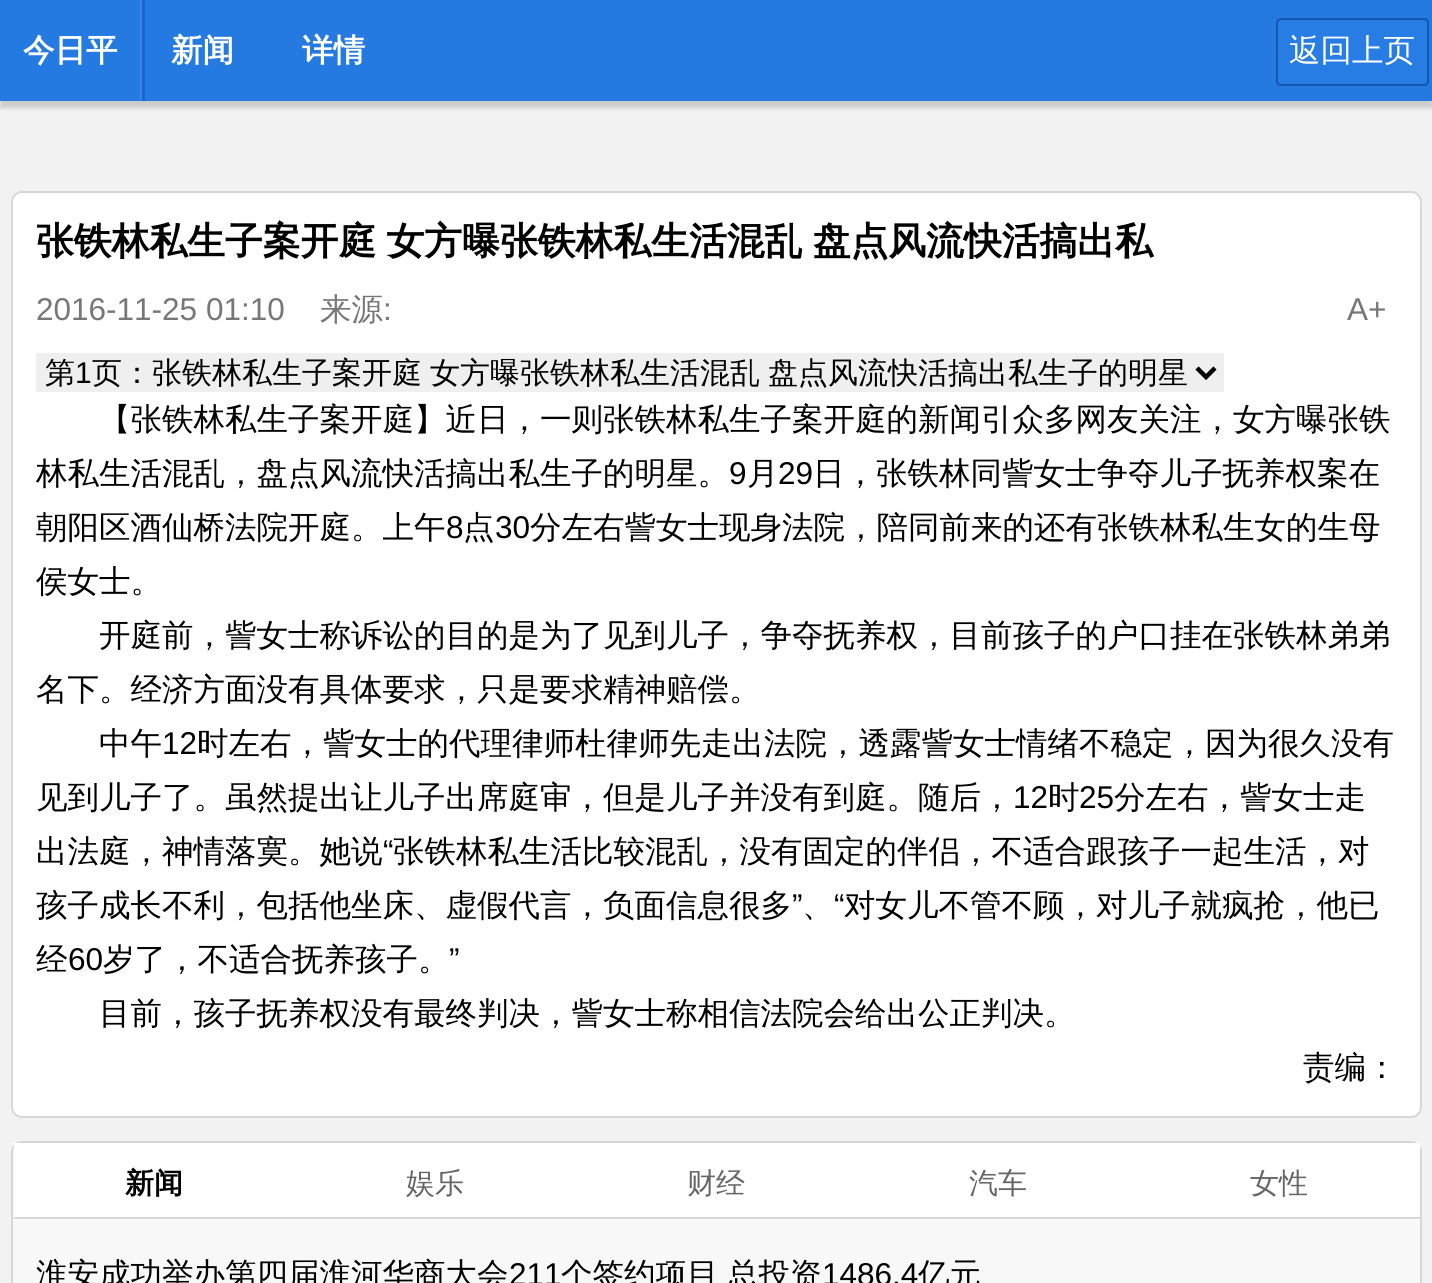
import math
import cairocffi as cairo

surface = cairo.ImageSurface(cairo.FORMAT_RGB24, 1432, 1283)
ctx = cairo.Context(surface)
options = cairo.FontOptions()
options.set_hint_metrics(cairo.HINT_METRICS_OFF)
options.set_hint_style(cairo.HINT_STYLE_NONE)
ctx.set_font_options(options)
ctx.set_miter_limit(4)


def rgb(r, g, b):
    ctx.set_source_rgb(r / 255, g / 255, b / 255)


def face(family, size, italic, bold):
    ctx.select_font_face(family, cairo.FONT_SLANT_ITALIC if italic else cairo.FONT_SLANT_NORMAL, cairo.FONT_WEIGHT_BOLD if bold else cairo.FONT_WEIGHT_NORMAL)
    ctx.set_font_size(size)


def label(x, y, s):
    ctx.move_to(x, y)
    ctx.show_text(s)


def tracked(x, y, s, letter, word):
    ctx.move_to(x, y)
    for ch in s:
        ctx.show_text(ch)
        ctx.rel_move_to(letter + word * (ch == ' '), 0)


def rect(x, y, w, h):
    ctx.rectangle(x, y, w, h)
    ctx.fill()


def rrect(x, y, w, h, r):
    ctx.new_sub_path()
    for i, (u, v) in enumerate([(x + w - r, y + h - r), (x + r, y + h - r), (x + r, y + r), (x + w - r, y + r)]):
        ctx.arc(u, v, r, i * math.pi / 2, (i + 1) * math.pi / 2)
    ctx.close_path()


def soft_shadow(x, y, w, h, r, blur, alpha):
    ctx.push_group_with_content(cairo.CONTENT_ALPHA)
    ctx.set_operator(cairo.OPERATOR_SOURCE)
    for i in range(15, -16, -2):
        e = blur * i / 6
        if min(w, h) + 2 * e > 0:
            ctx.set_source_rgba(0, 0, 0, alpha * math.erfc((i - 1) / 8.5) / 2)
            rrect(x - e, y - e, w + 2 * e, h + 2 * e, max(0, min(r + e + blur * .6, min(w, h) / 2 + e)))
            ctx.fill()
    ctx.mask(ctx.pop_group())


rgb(242, 242, 242)
ctx.paint()
rgb(204, 204, 204)
soft_shadow(0, 7, 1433, 101, 0, 2, 1)
rgb(36, 122, 225)
rect(0, 0, 1432, 101)
face('WenQuanYi Zen Hei', 31.5, 0, 1)
rgb(255, 255, 255)
label(23, 61, '今日平')
rgb(25, 101, 213)
rect(142, 0, 3, 101)
rgb(55, 133, 224)
rect(140, 0, 2, 101)
rgb(255, 255, 255)
label(171, 61, '新闻')
label(302, 61, '详情')
rgb(39, 125, 228)
rrect(1277, 19, 151, 66, 4)
ctx.fill_preserve()
rgb(16, 87, 175)
ctx.stroke()
face('WenQuanYi Zen Hei Medium', 31.5, 0, 0)
rgb(255, 255, 255)
label(1289, 61, '返回上页')
rrect(12, 192, 1409, 925, 10)
ctx.fill_preserve()
rgb(215, 215, 215)
ctx.stroke()
face('WenQuanYi Zen Hei', 37.8, 0, 1)
rgb(0, 0, 0)
tracked(36, 254, '张铁林私生子案开庭 女方曝张铁林私生活混乱 盘点风流快活搞出私', 0, -1)
face('Liberation Sans', 31.5, 0, 0)
rgb(119, 119, 119)
label(36, 320, '2016-11-25 01:10')
face('WenQuanYi Zen Hei Medium', 31.5, 0, 0)
label(320, 320, '来源')
face('Liberation Sans', 31.5, 0, 0)
label(383, 320, ':')
label(1347, 320, 'A+')
rgb(239, 239, 239)
rect(36, 353, 1188, 39)
ctx.new_path()
ctx.move_to(1197, 368)
ctx.line_to(1206, 377)
ctx.line_to(1215, 368)
rgb(0, 0, 0)
ctx.set_line_width(4.5)
ctx.stroke()
face('WenQuanYi Zen Hei Medium', 30, 0, 0)
label(45, 383, '第')
face('Liberation Sans', 30, 0, 0)
label(75, 383, '1')
face('WenQuanYi Zen Hei Medium', 30, 0, 0)
tracked(92, 383, '页：张铁林私生子案开庭 女方曝张铁林私生活混乱 盘点风流快活搞出私生子的明星', 0, -1)
face('WenQuanYi Zen Hei Medium', 31.5, 0, 0)
label(99, 430, '【张铁林私生子案开庭】近日，一则张铁林私生子案开庭的新闻引众多网友关注，女方曝张铁')
label(36, 484, '林私生活混乱，盘点风流快活搞出私生子的明星。')
face('Liberation Sans', 31.5, 0, 0)
label(729, 484, '9')
face('WenQuanYi Zen Hei Medium', 31.5, 0, 0)
label(747, 484, '月')
face('Liberation Sans', 31.5, 0, 0)
label(778, 484, '29')
face('WenQuanYi Zen Hei Medium', 31.5, 0, 0)
label(813, 484, '日，张铁林同訾女士争夺儿子抚养权案在')
label(36, 538, '朝阳区酒仙桥法院开庭。上午')
face('Liberation Sans', 31.5, 0, 0)
label(446, 538, '8')
face('WenQuanYi Zen Hei Medium', 31.5, 0, 0)
label(463, 538, '点')
face('Liberation Sans', 31.5, 0, 0)
label(495, 538, '30')
face('WenQuanYi Zen Hei Medium', 31.5, 0, 0)
label(530, 538, '分左右訾女士现身法院，陪同前来的还有张铁林私生女的生母')
label(36, 592, '侯女士。')
label(99, 646, '开庭前，訾女士称诉讼的目的是为了见到儿子，争夺抚养权，目前孩子的户口挂在张铁林弟弟')
label(36, 700, '名下。经济方面没有具体要求，只是要求精神赔偿。')
label(99, 754, '中午')
face('Liberation Sans', 31.5, 0, 0)
label(162, 754, '12')
face('WenQuanYi Zen Hei Medium', 31.5, 0, 0)
label(197, 754, '时左右，訾女士的代理律师杜律师先走出法院，透露訾女士情绪不稳定，因为很久没有')
label(36, 808, '见到儿子了。虽然提出让儿子出席庭审，但是儿子并没有到庭。随后，')
face('Liberation Sans', 31.5, 0, 0)
label(1013, 808, '12')
face('WenQuanYi Zen Hei Medium', 31.5, 0, 0)
label(1048, 808, '时')
face('Liberation Sans', 31.5, 0, 0)
label(1079, 808, '25')
face('WenQuanYi Zen Hei Medium', 31.5, 0, 0)
label(1114, 808, '分左右，訾女士走')
label(36, 862, '出法庭，神情落寞。她说')
face('Liberation Sans', 31.5, 0, 0)
label(383, 862, '“')
face('WenQuanYi Zen Hei Medium', 31.5, 0, 0)
label(393, 862, '张铁林私生活比较混乱，没有固定的伴侣，不适合跟孩子一起生活，对')
label(36, 916, '孩子成长不利，包括他坐床、虚假代言，负面信息很多')
face('Liberation Sans', 31.5, 0, 0)
label(792, 916, '”')
label(834, 916, '“')
face('WenQuanYi Zen Hei Medium', 31.5, 0, 0)
label(844, 916, '对女儿不管不顾，对儿子就疯抢，他已')
label(802, 916, '、')
label(36, 970, '经')
face('Liberation Sans', 31.5, 0, 0)
label(68, 970, '60')
face('WenQuanYi Zen Hei Medium', 31.5, 0, 0)
label(103, 970, '岁了，不适合抚养孩子。')
face('Liberation Sans', 31.5, 0, 0)
label(449, 970, '”')
face('WenQuanYi Zen Hei Medium', 31.5, 0, 0)
label(99, 1024, '目前，孩子抚养权没有最终判决，訾女士称相信法院会给出公正判决。')
label(1303, 1078, '责编：')
rgb(248, 248, 248)
rrect(12, 1142, 1409, 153, 10)
ctx.fill_preserve()
rgb(215, 215, 215)
ctx.set_line_width(2)
ctx.stroke()
rgb(255, 255, 255)
rect(14, 1143, 1406, 77)
rgb(215, 215, 215)
rect(14, 1217, 1406, 2)
face('WenQuanYi Zen Hei', 29, 0, 1)
rgb(0, 0, 0)
label(125, 1193, '新闻')
face('WenQuanYi Zen Hei Medium', 29, 0, 0)
rgb(102, 102, 102)
label(406, 1193, '娱乐')
label(687, 1193, '财经')
label(969, 1193, '汽车')
label(1250, 1193, '女性')
face('WenQuanYi Zen Hei Medium', 31.5, 0, 0)
rgb(0, 0, 0)
label(36, 1285, '淮安成功举办第四届淮河华商大会')
face('Liberation Sans', 31.5, 0, 0)
label(509, 1285, '211')
face('WenQuanYi Zen Hei Medium', 31.5, 0, 0)
tracked(561, 1285, '个签约项目 总投资', 0, -1)
face('Liberation Sans', 31.5, 0, 0)
label(822, 1285, '1486.4')
face('WenQuanYi Zen Hei Medium', 31.5, 0, 0)
label(918, 1285, '亿元')
surface.write_to_png('render.png')
